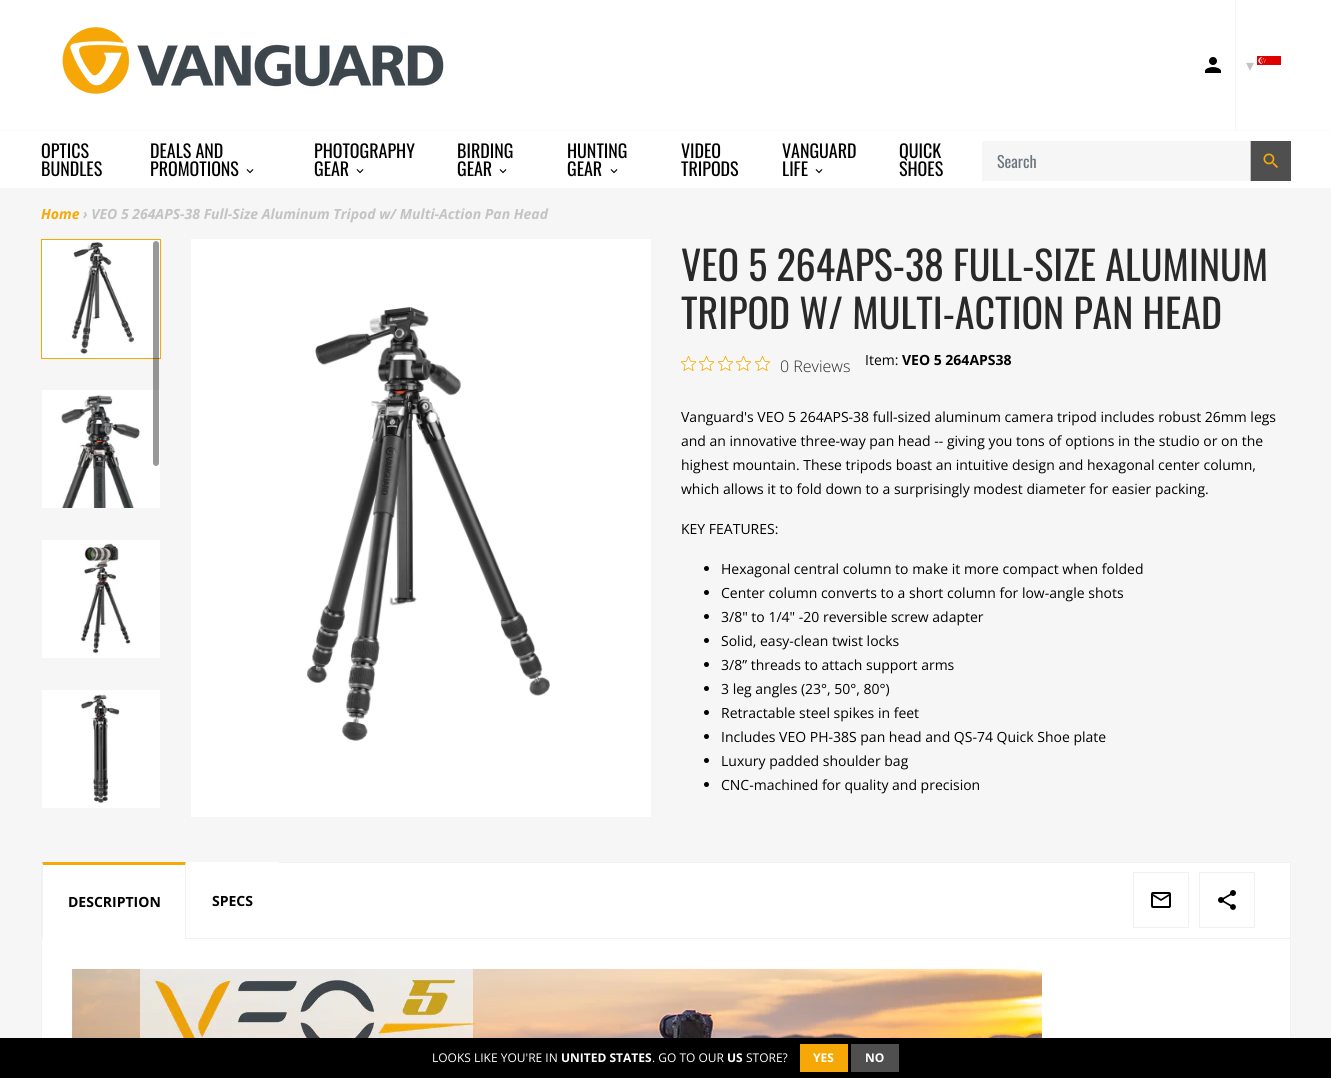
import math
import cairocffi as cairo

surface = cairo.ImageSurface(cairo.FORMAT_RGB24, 1331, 1078)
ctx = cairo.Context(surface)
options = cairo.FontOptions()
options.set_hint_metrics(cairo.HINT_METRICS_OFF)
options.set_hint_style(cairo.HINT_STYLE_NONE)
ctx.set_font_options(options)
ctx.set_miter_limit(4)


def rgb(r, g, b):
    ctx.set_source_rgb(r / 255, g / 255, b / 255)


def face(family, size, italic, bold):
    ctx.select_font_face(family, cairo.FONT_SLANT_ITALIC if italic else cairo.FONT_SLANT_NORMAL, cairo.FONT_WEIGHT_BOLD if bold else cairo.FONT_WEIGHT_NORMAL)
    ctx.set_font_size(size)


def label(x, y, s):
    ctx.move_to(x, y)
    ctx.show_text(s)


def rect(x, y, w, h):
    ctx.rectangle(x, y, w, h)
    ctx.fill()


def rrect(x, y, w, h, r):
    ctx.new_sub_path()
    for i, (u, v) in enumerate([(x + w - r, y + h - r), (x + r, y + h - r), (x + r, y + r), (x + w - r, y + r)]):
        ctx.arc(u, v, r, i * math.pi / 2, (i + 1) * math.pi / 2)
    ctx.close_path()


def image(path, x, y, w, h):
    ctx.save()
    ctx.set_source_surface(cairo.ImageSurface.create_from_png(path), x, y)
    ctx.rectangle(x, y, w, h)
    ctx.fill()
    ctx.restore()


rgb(246, 246, 246)
ctx.paint()
rgb(255, 255, 255)
rect(0, 0, 1331, 188)
rgb(250, 250, 250)
rect(0, 130, 1331, 1)
image('image0.png', 62, 27, 382, 67)
image('image1.png', 1205, 57, 16, 16)
rgb(246, 246, 246)
rect(1235, 0, 1, 130)
image('image2.png', 1257, 56, 24, 9)
face('DejaVu Sans', 16, 0, 0)
rgb(195, 195, 195)
label(1246, 71, '▾')
face('Oswald', 18, 0, 0)
rgb(0, 0, 0)
label(41, 158, 'OPTICS')
label(41, 176, 'BUNDLES')
label(150, 158, 'DEALS AND')
label(150, 176, 'PROMOTIONS')
image('image3.png', 246, 169, 8, 5)
label(314, 158, 'PHOTOGRAPHY')
label(314, 176, 'GEAR')
image('image3.png', 356, 169, 8, 5)
label(457, 158, 'BIRDING')
label(457, 176, 'GEAR')
image('image3.png', 499, 169, 8, 5)
label(567, 158, 'HUNTING')
label(567, 176, 'GEAR')
image('image3.png', 610, 169, 8, 5)
label(681, 158, 'VIDEO')
label(681, 176, 'TRIPODS')
label(782, 158, 'VANGUARD')
label(782, 176, 'LIFE')
image('image3.png', 815, 169, 8, 5)
label(899, 158, 'QUICK')
label(899, 176, 'SHOES')
rgb(246, 246, 246)
rect(982, 141, 268, 40)
rgb(195, 195, 195)
rect(1250, 141, 1, 40)
face('Oswald', 16, 0, 0)
rgb(108, 117, 125)
label(997, 168, 'Search')
rgb(79, 79, 79)
rect(1251, 141, 40, 40)
image('image4.png', 1263, 153, 15, 15)
face('Open Sans', 14, 1, 1)
rgb(246, 168, 6)
label(41, 219, 'Home')
rgb(195, 195, 195)
label(83, 219, '› VEO 5 264APS-38 Full-Size Aluminum Tripod w/ Multi-Action Pan Head')
ctx.rectangle(41.5, 239.5, 119, 119)
rgb(246, 168, 6)
ctx.set_line_width(1)
ctx.stroke()
image('image5.png', 42, 240, 118, 118)
image('image6.png', 42, 390, 118, 118)
image('image7.png', 42, 540, 118, 118)
image('image8.png', 42, 690, 118, 118)
ctx.set_source_rgba(0, 0, 0, 0.4)
rrect(153, 241, 6, 225, 3)
ctx.fill()
rgb(255, 255, 255)
rect(191, 239, 460, 578)
image('image9.png', 307, 306, 243, 435)
face('Oswald', 40, 0, 0)
rgb(41, 41, 41)
label(681, 281, 'VEO 5 264APS-38 FULL-SIZE ALUMINUM')
label(681, 329, 'TRIPOD W/ MULTI-ACTION PAN HEAD')
image('image10.png', 681, 356, 15, 15)
image('image10.png', 699, 356, 15, 15)
image('image10.png', 718, 356, 15, 15)
image('image10.png', 736, 356, 15, 15)
image('image10.png', 755, 356, 15, 15)
face('Open Sans Light', 16, 0, 0)
label(780, 372, '0 Reviews')
face('Open Sans', 14, 0, 0)
rgb(0, 0, 0)
label(865, 365, 'Item:')
face('Open Sans', 14, 0, 1)
label(902, 365, 'VEO 5 264APS38')
face('Open Sans', 14, 0, 0)
label(681, 422, 'Vanguard\'s VEO 5 264APS-38 full-sized aluminum camera tripod includes robust 26mm legs')
label(681, 446, 'and an innovative three-way pan head -- giving you tons of options in the studio or on the')
label(681, 470, 'highest mountain. These tripods boast an intuitive design and hexagonal center column,')
label(681, 494, 'which allows it to fold down to a surprisingly modest diameter for easier packing.')
label(681, 534, 'KEY FEATURES:')
ctx.new_path()
ctx.arc(706.5, 568.5, 2.5, 0, 2 * math.pi)
ctx.fill()
label(721, 574, 'Hexagonal central column to make it more compact when folded')
ctx.new_path()
ctx.arc(706.5, 592.5, 2.5, 0, 2 * math.pi)
ctx.fill()
label(721, 598, 'Center column converts to a short column for low-angle shots')
ctx.new_path()
ctx.arc(706.5, 616.5, 2.5, 0, 2 * math.pi)
ctx.fill()
label(721, 622, '3/8" to 1/4" -20 reversible screw adapter')
ctx.new_path()
ctx.arc(706.5, 640.5, 2.5, 0, 2 * math.pi)
ctx.fill()
label(721, 646, 'Solid, easy-clean twist locks')
ctx.new_path()
ctx.arc(706.5, 664.5, 2.5, 0, 2 * math.pi)
ctx.fill()
label(721, 670, '3/8” threads to attach support arms')
ctx.new_path()
ctx.arc(706.5, 688.5, 2.5, 0, 2 * math.pi)
ctx.fill()
label(721, 694, '3 leg angles (23°, 50°, 80°)')
ctx.new_path()
ctx.arc(706.5, 712.5, 2.5, 0, 2 * math.pi)
ctx.fill()
label(721, 718, 'Retractable steel spikes in feet')
ctx.new_path()
ctx.arc(706.5, 736.5, 2.5, 0, 2 * math.pi)
ctx.fill()
label(721, 742, 'Includes VEO PH-38S pan head and QS-74 Quick Shoe plate')
ctx.new_path()
ctx.arc(706.5, 760.5, 2.5, 0, 2 * math.pi)
ctx.fill()
label(721, 766, 'Luxury padded shoulder bag')
ctx.new_path()
ctx.arc(706.5, 784.5, 2.5, 0, 2 * math.pi)
ctx.fill()
label(721, 790, 'CNC-machined for quality and precision')
rgb(255, 255, 255)
rect(42, 863, 1248, 175)
ctx.rectangle(41.5, 862.5, 1249, 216)
rgb(241, 241, 241)
ctx.stroke()
rect(186, 938, 1104, 1)
rgb(255, 255, 255)
rect(42, 862, 237, 1)
rgb(246, 168, 6)
ctx.new_path()
ctx.move_to(42, 862)
ctx.line_to(186, 862)
ctx.line_to(185, 865)
ctx.line_to(43, 865)
ctx.close_path()
ctx.fill()
rgb(241, 241, 241)
ctx.new_path()
ctx.move_to(186, 862)
ctx.line_to(186, 939)
ctx.line_to(185, 939)
ctx.line_to(185, 865)
ctx.close_path()
ctx.fill()
ctx.new_path()
ctx.move_to(42, 939)
ctx.line_to(42, 862)
ctx.line_to(43, 865)
ctx.line_to(43, 939)
ctx.close_path()
ctx.fill()
face('Open Sans', 14, 0, 1)
rgb(0, 0, 0)
label(68, 907, 'DESCRIPTION')
label(212, 906, 'SPECS')
ctx.rectangle(1133.5, 872.5, 55, 55)
rgb(241, 241, 241)
ctx.stroke()
image('image11.png', 1151, 892, 20, 16)
ctx.rectangle(1199.5, 872.5, 55, 55)
ctx.stroke()
image('image12.png', 1218, 890, 18, 20)
image('image13.png', 72, 969, 970, 69)
rgb(0, 0, 0)
rect(0, 1038, 1331, 40)
face('Open Sans', 12, 0, 0)
rgb(255, 255, 255)
label(432, 1062, 'LOOKS LIKE YOU\'RE IN')
face('Open Sans', 12, 0, 1)
label(561, 1062, 'UNITED STATES')
face('Open Sans', 12, 0, 0)
label(652, 1062, '. GO TO OUR')
face('Open Sans', 12, 0, 1)
label(727, 1062, 'US')
face('Open Sans', 12, 0, 0)
label(746, 1062, 'STORE?')
rgb(246, 168, 6)
rect(800, 1044, 48, 28)
face('Open Sans', 12, 0, 1)
rgb(255, 255, 255)
label(813, 1062, 'YES')
rgb(79, 79, 79)
rect(851, 1044, 48, 28)
rgb(255, 255, 255)
label(865, 1062, 'NO')
surface.write_to_png('render.png')
